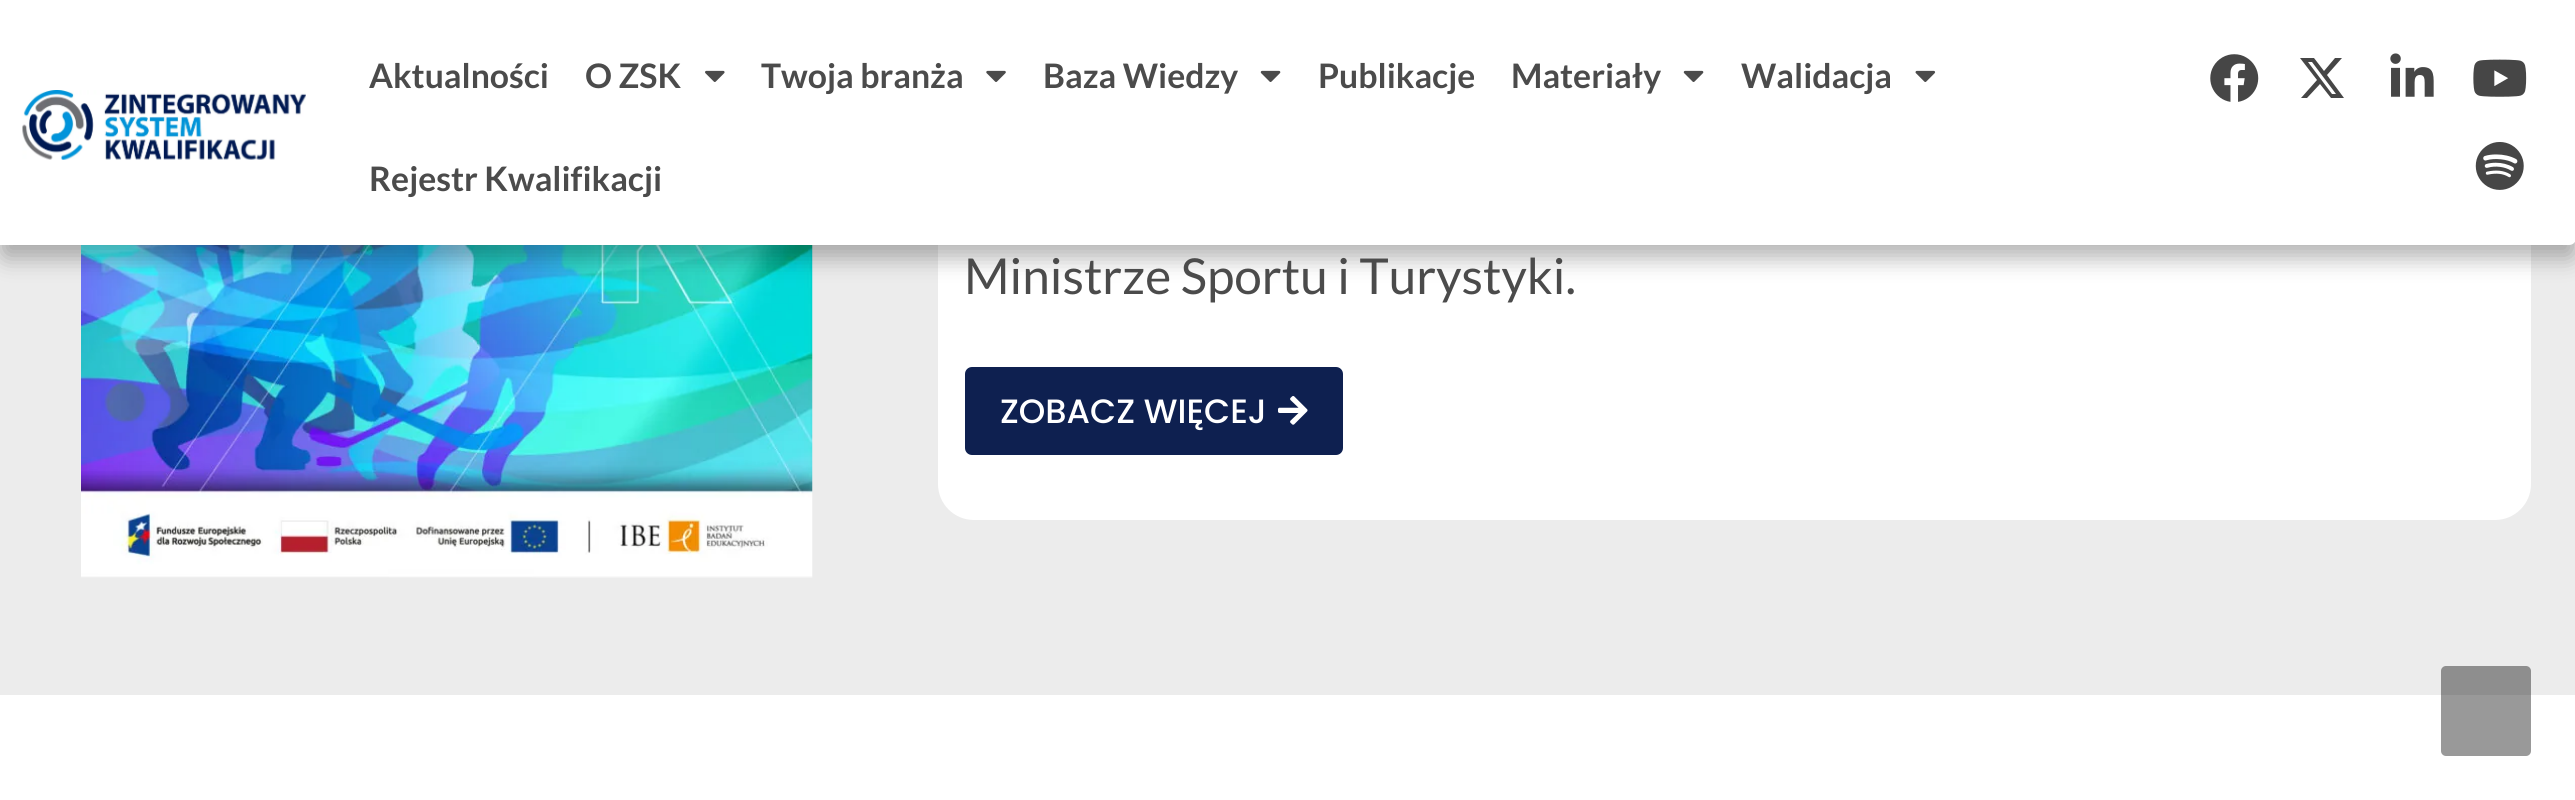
import math
import cairocffi as cairo

surface = cairo.ImageSurface(cairo.FORMAT_RGB24, 2575, 800)
ctx = cairo.Context(surface)
options = cairo.FontOptions()
options.set_hint_metrics(cairo.HINT_METRICS_OFF)
options.set_hint_style(cairo.HINT_STYLE_NONE)
ctx.set_font_options(options)
ctx.set_miter_limit(4)


def rgb(r, g, b):
    ctx.set_source_rgb(r / 255, g / 255, b / 255)


def face(family, size, italic, bold):
    ctx.select_font_face(family, cairo.FONT_SLANT_ITALIC if italic else cairo.FONT_SLANT_NORMAL, cairo.FONT_WEIGHT_BOLD if bold else cairo.FONT_WEIGHT_NORMAL)
    ctx.set_font_size(size)


def label(x, y, s):
    ctx.move_to(x, y)
    ctx.show_text(s)


def rect(x, y, w, h):
    ctx.rectangle(x, y, w, h)
    ctx.fill()


def rrect(x, y, w, h, r):
    ctx.new_sub_path()
    for i, (u, v) in enumerate([(x + w - r, y + h - r), (x + r, y + h - r), (x + r, y + r), (x + w - r, y + r)]):
        ctx.arc(u, v, r, i * math.pi / 2, (i + 1) * math.pi / 2)
    ctx.close_path()


def soft_shadow(x, y, w, h, r, blur, alpha):
    ctx.push_group_with_content(cairo.CONTENT_ALPHA)
    ctx.set_operator(cairo.OPERATOR_SOURCE)
    for i in range(15, -16, -2):
        e = blur * i / 6
        if min(w, h) + 2 * e > 0:
            ctx.set_source_rgba(0, 0, 0, alpha * math.erfc((i - 1) / 8.5) / 2)
            rrect(x - e, y - e, w + 2 * e, h + 2 * e, max(0, min(r + e + blur * .6, min(w, h) / 2 + e)))
            ctx.fill()
    ctx.mask(ctx.pop_group())


def image(path, x, y, w, h):
    ctx.save()
    ctx.set_source_surface(cairo.ImageSurface.create_from_png(path), x, y)
    ctx.rectangle(x, y, w, h)
    ctx.fill()
    ctx.restore()


rgb(255, 255, 255)
ctx.paint()
rgb(236, 236, 236)
rect(0, 241, 2575, 454)
image('image9.png', 81, 245, 732, 333)
rgb(255, 255, 255)
rrect(938, -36, 1593, 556, 36)
ctx.fill()
rgb(0, 0, 0)
soft_shadow(0, 14, 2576, 245, 7, 11, 0.28)
rgb(255, 255, 255)
ctx.new_path()
ctx.move_to(0, 0)
ctx.line_to(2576, 0)
ctx.line_to(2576, 238)
ctx.curve_to(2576, 242, 2573, 245, 2569, 245)
ctx.line_to(0, 245)
ctx.close_path()
ctx.fill()
image('image0.png', 22, 90, 284, 70)
face('Lato', 33.75, 0, 1)
rgb(75, 75, 75)
label(369, 88, 'Aktualności')
label(585, 88, 'O ZSK')
image('image1.png', 705, 70, 20, 12)
label(761, 88, 'Twoja branża')
image('image2.png', 986, 70, 20, 12)
label(1043, 88, 'Baza Wiedzy')
image('image3.png', 1260, 70, 21, 12)
label(1318, 88, 'Publikacje')
label(1511, 88, 'Materiały')
image('image3.png', 1683, 70, 21, 12)
label(1741, 88, 'Walidacja')
image('image4.png', 1915, 70, 21, 12)
label(369, 191, 'Rejestr Kwalifikacji')
image('image5.png', 2210, 54, 49, 48)
rgb(70, 70, 70)
ctx.new_path()
ctx.move_to(2335, 58)
ctx.line_to(2342, 58)
ctx.line_to(2327, 75)
ctx.line_to(2344, 98)
ctx.line_to(2331, 98)
ctx.line_to(2320, 84)
ctx.line_to(2307, 98)
ctx.line_to(2301, 98)
ctx.line_to(2317, 80)
ctx.line_to(2300, 58)
ctx.line_to(2314, 58)
ctx.line_to(2324, 71)
ctx.close_path()
ctx.move_to(2332, 94)
ctx.line_to(2336, 94)
ctx.line_to(2312, 62)
ctx.line_to(2308, 62)
ctx.close_path()
ctx.fill()
image('image6.png', 2390, 53, 44, 44)
image('image7.png', 2473, 59, 54, 38)
image('image8.png', 2475, 142, 49, 48)
face('Lato', 49.5, 0, 0)
rgb(75, 75, 75)
label(964, 294, 'Ministrze Sportu i Turystyki.')
rgb(14, 32, 80)
rrect(965, 367, 378, 88, 7)
ctx.fill()
face('Poppins Medium', 33.75, 0, 0)
rgb(255, 255, 255)
label(1000, 423, 'ZOBACZ WIĘCEJ')
image('image10.png', 1278, 396, 30, 29)
ctx.set_source_rgba(0, 0, 0, 0.4)
rrect(2441, 666, 90, 90, 5)
ctx.fill()
surface.write_to_png('render.png')
